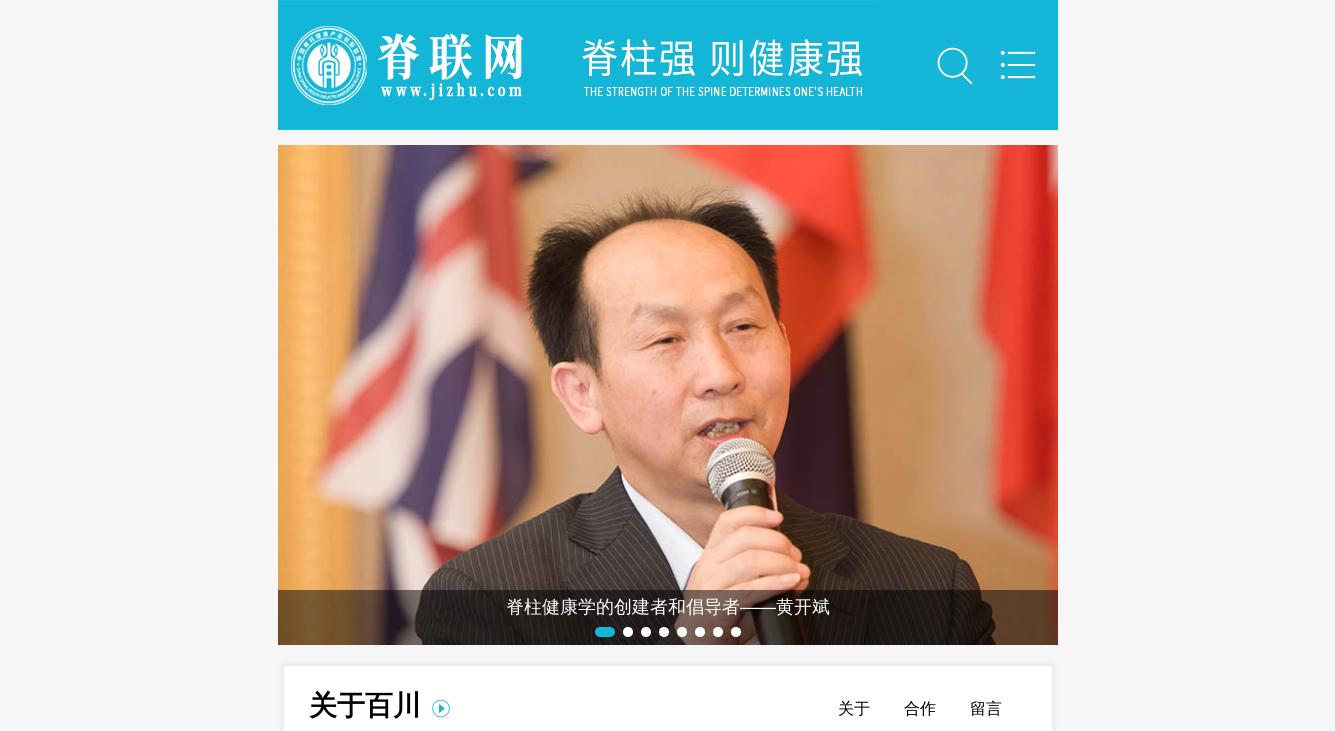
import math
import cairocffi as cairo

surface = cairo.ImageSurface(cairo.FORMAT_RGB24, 1335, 731)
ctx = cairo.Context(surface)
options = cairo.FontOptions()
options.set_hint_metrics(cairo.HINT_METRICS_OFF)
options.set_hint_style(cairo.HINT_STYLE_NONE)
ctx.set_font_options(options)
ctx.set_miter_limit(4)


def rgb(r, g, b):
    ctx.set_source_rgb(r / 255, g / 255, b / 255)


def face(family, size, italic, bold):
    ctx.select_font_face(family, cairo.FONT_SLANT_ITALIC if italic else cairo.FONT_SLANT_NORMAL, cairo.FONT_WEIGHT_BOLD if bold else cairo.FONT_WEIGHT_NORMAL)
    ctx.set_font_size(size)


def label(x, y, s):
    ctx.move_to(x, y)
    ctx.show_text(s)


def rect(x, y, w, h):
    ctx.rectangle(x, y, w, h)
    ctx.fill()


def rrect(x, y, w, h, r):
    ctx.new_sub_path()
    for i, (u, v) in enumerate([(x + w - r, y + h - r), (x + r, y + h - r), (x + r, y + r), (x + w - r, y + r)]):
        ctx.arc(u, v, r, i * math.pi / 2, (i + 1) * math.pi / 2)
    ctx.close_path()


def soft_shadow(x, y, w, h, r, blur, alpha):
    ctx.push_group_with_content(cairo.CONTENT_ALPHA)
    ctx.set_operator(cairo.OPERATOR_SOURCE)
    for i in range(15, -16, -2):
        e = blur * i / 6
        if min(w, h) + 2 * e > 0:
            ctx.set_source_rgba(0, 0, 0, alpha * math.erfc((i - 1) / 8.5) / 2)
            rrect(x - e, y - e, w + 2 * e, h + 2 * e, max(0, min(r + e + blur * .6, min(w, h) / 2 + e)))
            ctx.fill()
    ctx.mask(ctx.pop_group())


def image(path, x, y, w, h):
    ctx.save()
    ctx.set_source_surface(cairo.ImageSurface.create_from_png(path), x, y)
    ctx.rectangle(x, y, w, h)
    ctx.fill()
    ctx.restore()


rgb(246, 246, 246)
ctx.paint()
rgb(22, 182, 216)
rect(879, 0, 179, 130)
image('image0.png', 278, 0, 601, 130)
image('image1.png', 937, 47, 36, 38)
image('image2.png', 1000, 50, 36, 30)
image('image3.png', 278, 145, 780, 500)
ctx.set_source_rgba(0, 0, 0, 0.5)
rect(278, 590, 780, 55)
face('WenQuanYi Zen Hei Medium', 18, 0, 0)
rgb(255, 255, 255)
label(506, 613, '脊柱健康学的创建者和倡导者')
face('Liberation Sans', 18, 0, 0)
label(740, 613, '——')
face('WenQuanYi Zen Hei Medium', 18, 0, 0)
label(776, 613, '黄开斌')
rgb(19, 182, 215)
rrect(595, 627, 20, 10, 5)
ctx.fill()
rgb(255, 255, 255)
ctx.arc(628, 632, 5, 0, 2 * math.pi)
ctx.fill()
ctx.arc(646, 632, 5, 0, 2 * math.pi)
ctx.fill()
ctx.arc(664, 632, 5, 0, 2 * math.pi)
ctx.fill()
ctx.arc(682, 632, 5, 0, 2 * math.pi)
ctx.fill()
ctx.arc(700, 632, 5, 0, 2 * math.pi)
ctx.fill()
ctx.arc(718, 632, 5, 0, 2 * math.pi)
ctx.fill()
ctx.arc(736, 632, 5, 0, 2 * math.pi)
ctx.fill()
rgb(0, 0, 0)
soft_shadow(283, 665, 770, 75, 0, 3, 0.1)
rgb(255, 255, 255)
ctx.rectangle(283.5, 665.5, 769, 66)
ctx.fill_preserve()
rgb(237, 237, 237)
ctx.set_line_width(1)
ctx.stroke()
face('WenQuanYi Zen Hei', 28, 0, 1)
rgb(0, 0, 0)
label(309, 715, '关于百川')
image('image4.png', 432, 699, 18, 19)
face('WenQuanYi Zen Hei Medium', 16, 0, 0)
label(838, 714, '关于')
label(904, 714, '合作')
label(970, 714, '留言')
surface.write_to_png('render.png')
